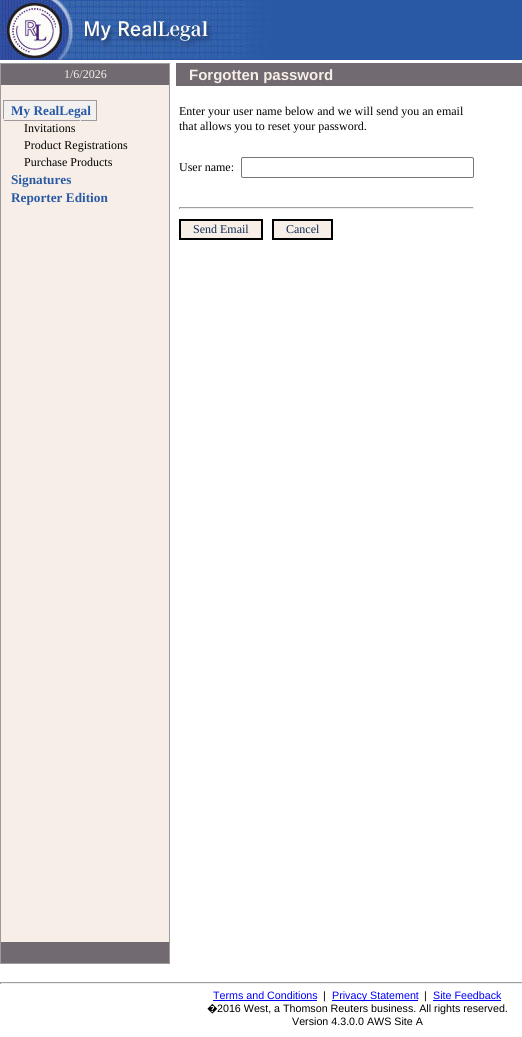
import math
import cairocffi as cairo

surface = cairo.ImageSurface(cairo.FORMAT_RGB24, 522, 1037)
ctx = cairo.Context(surface)
options = cairo.FontOptions()
options.set_hint_metrics(cairo.HINT_METRICS_OFF)
options.set_hint_style(cairo.HINT_STYLE_NONE)
ctx.set_font_options(options)
ctx.set_miter_limit(4)


def rgb(r, g, b):
    ctx.set_source_rgb(r / 255, g / 255, b / 255)


def face(family, size, italic, bold):
    ctx.select_font_face(family, cairo.FONT_SLANT_ITALIC if italic else cairo.FONT_SLANT_NORMAL, cairo.FONT_WEIGHT_BOLD if bold else cairo.FONT_WEIGHT_NORMAL)
    ctx.set_font_size(size)


def label(x, y, s):
    ctx.move_to(x, y)
    ctx.show_text(s)


def rect(x, y, w, h):
    ctx.rectangle(x, y, w, h)
    ctx.fill()


def rrect(x, y, w, h, r):
    ctx.new_sub_path()
    for i, (u, v) in enumerate([(x + w - r, y + h - r), (x + r, y + h - r), (x + r, y + r), (x + w - r, y + r)]):
        ctx.arc(u, v, r, i * math.pi / 2, (i + 1) * math.pi / 2)
    ctx.close_path()


def image(path, x, y, w, h):
    ctx.save()
    ctx.set_source_surface(cairo.ImageSurface.create_from_png(path), x, y)
    ctx.rectangle(x, y, w, h)
    ctx.fill()
    ctx.restore()


rgb(255, 255, 255)
ctx.paint()
image('image0.png', 0, 0, 522, 60)
rgb(247, 239, 231)
rect(1, 85, 168, 857)
ctx.rectangle(0.5, 63.5, 169, 900)
rgb(156, 154, 156)
ctx.set_line_width(1)
ctx.stroke()
rgb(113, 106, 113)
rect(1, 64, 168, 21)
face('Liberation Serif', 12, 0, 0)
rgb(247, 239, 231)
label(64, 78, '1/6/2026')
rgb(243, 241, 239)
ctx.rectangle(3.5, 100.5, 93, 20)
ctx.fill_preserve()
rgb(156, 154, 157)
ctx.stroke()
face('Liberation Serif', 13.25, 0, 1)
rgb(41, 89, 165)
label(11, 115, 'My RealLegal')
ctx.rectangle(3.5, 119.5, 77, 17)
rgb(247, 239, 231)
ctx.stroke()
face('Liberation Serif', 12, 0, 0)
rgb(0, 0, 0)
label(24, 132, 'Invitations')
label(24, 149, 'Product Registrations')
label(24, 166, 'Purchase Products')
face('Liberation Serif', 13.25, 0, 1)
rgb(41, 89, 165)
label(11, 184, 'Signatures')
label(11, 202, 'Reporter Edition')
rgb(113, 106, 113)
rect(1, 942, 168, 21)
rect(176, 63, 346, 23)
face('Liberation Sans', 15, 0, 1)
rgb(247, 239, 231)
label(189, 80, 'Forgotten password')
face('Liberation Serif', 12, 0, 0)
rgb(0, 0, 0)
label(179, 115, 'Enter your user name below and we will send you an email')
label(179, 130, 'that allows you to reset your password.')
label(179, 171, 'User name:')
rrect(241.5, 157.5, 232, 20, 1.5)
rgb(118, 118, 118)
ctx.stroke()
rgb(159, 159, 159)
rect(179, 207, 295, 1)
rgb(238, 238, 238)
rect(473, 207, 1, 2)
rect(179, 208, 295, 1)
rgb(159, 159, 159)
rect(179, 207, 1, 2)
rgb(247, 239, 231)
ctx.rectangle(180, 220, 82, 19)
ctx.fill_preserve()
rgb(0, 0, 0)
ctx.set_line_width(2)
ctx.stroke()
rgb(16, 40, 82)
label(193, 233, 'Send Email')
rgb(247, 239, 231)
ctx.rectangle(273, 220, 59, 19)
ctx.fill_preserve()
rgb(0, 0, 0)
ctx.stroke()
rgb(16, 40, 82)
label(286, 233, 'Cancel')
rgb(159, 159, 159)
rect(0, 982, 522, 1)
rgb(238, 238, 238)
rect(0, 983, 522, 1)
rgb(159, 159, 159)
rect(0, 982, 1, 2)
face('Liberation Sans', 10.7, 0, 0)
rgb(0, 0, 255)
label(213, 999, 'Terms and Conditions')
rect(213, 1000, 104, 1)
rgb(0, 0, 0)
label(323, 999, '|')
rgb(0, 0, 255)
rect(332, 1000, 86, 1)
label(332, 999, 'Privacy Statement')
rgb(0, 0, 0)
label(424, 999, '|')
rgb(0, 0, 255)
label(433, 999, 'Site Feedback')
rect(433, 1000, 68, 1)
face('Noto Sans', 10.7, 0, 0)
rgb(0, 0, 0)
label(207, 1012, '�')
face('Liberation Sans', 10.7, 0, 0)
label(217, 1012, '2016 West, a Thomson Reuters business. All rights reserved.')
label(292, 1025, 'Version 4.3.0.0 AWS Site A')
surface.write_to_png('render.png')
